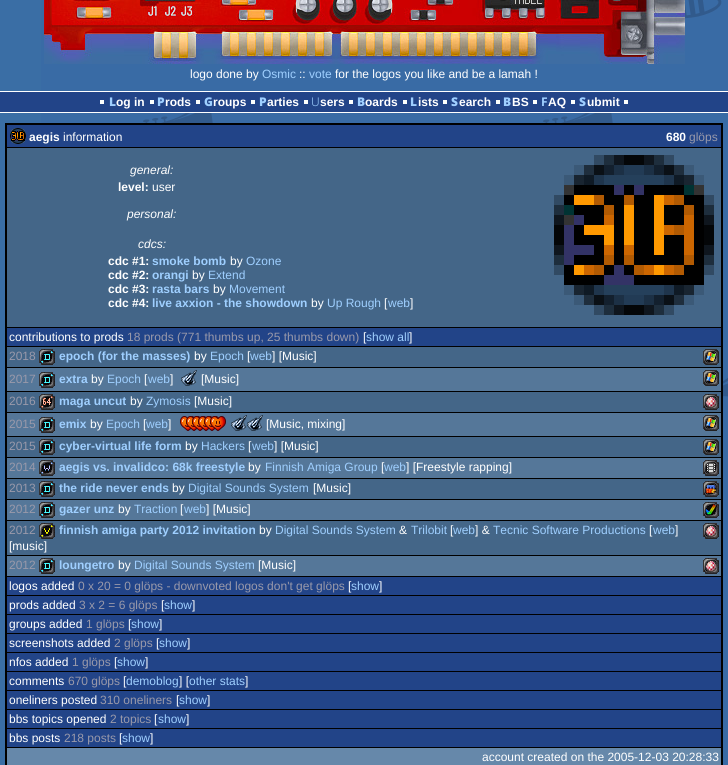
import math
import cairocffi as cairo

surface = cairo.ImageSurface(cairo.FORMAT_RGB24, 728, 765)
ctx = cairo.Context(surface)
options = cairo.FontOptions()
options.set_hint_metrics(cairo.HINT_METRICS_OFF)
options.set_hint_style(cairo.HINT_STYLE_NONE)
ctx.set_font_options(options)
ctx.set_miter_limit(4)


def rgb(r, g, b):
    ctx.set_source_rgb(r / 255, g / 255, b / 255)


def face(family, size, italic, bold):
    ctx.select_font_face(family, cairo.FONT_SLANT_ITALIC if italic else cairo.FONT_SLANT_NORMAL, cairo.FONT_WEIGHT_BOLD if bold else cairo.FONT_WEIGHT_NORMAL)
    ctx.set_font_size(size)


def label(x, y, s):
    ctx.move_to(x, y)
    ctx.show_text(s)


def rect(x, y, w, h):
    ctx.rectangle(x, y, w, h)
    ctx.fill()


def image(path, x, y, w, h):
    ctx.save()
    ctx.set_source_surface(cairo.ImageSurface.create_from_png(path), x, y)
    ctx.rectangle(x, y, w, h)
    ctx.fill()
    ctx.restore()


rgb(58, 110, 165)
ctx.paint()
image('image0.png', 41, 0, 687, 765)
image('image1.png', 44, 0, 641, 64)
face('Liberation Sans', 12, 0, 0)
rgb(255, 255, 255)
label(190, 78, 'logo done by')
rgb(159, 207, 255)
label(262, 78, 'Osmic')
rgb(255, 255, 255)
label(299, 78, '::')
rgb(159, 207, 255)
label(309, 78, 'vote')
rgb(255, 255, 255)
label(335, 78, 'for the logos you like and be a lamah !')
rgb(34, 68, 136)
rect(0, 92, 728, 20)
rgb(255, 255, 255)
rect(0, 91, 728, 1)
rect(0, 112, 728, 1)
image('image2.png', 100, 100, 54, 4)
face('Noto Sans Black', 12, 0, 0)
rgb(159, 207, 255)
label(109, 106, 'L')
face('Liberation Sans', 12, 0, 1)
rgb(255, 255, 255)
label(116, 106, 'og in')
rgb(252, 254, 252)
rect(196, 100, 4, 4)
face('Noto Sans Black', 12, 0, 0)
rgb(159, 207, 255)
label(157, 106, 'P')
face('Liberation Sans', 12, 0, 1)
rgb(255, 255, 255)
label(165, 106, 'rods')
rgb(252, 254, 252)
rect(251, 100, 4, 4)
face('Noto Sans Black', 12, 0, 0)
rgb(159, 207, 255)
label(204, 106, 'G')
face('Liberation Sans', 12, 0, 1)
rgb(255, 255, 255)
label(213, 106, 'roups')
rgb(252, 254, 252)
rect(304, 100, 4, 4)
face('Noto Sans Black', 12, 0, 0)
rgb(159, 207, 255)
label(259, 106, 'P')
face('Liberation Sans', 12, 0, 1)
rgb(255, 255, 255)
label(267, 106, 'arties')
rgb(252, 254, 252)
rect(349, 100, 4, 4)
face('Noto Sans Light', 12, 0, 0)
rgb(159, 207, 255)
label(311, 106, 'U')
face('Liberation Sans', 12, 0, 1)
rgb(255, 255, 255)
label(320, 106, 'sers')
rgb(252, 254, 252)
rect(403, 100, 4, 4)
face('Noto Sans Black', 12, 0, 0)
rgb(159, 207, 255)
label(357, 106, 'B')
face('Liberation Sans', 12, 0, 1)
rgb(255, 255, 255)
label(365, 106, 'oards')
rgb(252, 254, 252)
rect(443, 100, 4, 4)
face('Noto Sans Black', 12, 0, 0)
rgb(159, 207, 255)
label(410, 106, 'L')
face('Liberation Sans', 12, 0, 1)
rgb(255, 255, 255)
label(418, 106, 'ists')
rgb(252, 254, 252)
rect(496, 100, 4, 4)
face('Noto Sans Black', 12, 0, 0)
rgb(159, 207, 255)
label(451, 106, 'S')
face('Liberation Sans', 12, 0, 1)
rgb(255, 255, 255)
label(459, 106, 'earch')
rgb(252, 254, 252)
rect(533, 100, 4, 4)
face('Noto Sans Black', 12, 0, 0)
rgb(159, 207, 255)
label(503, 106, 'B')
face('Liberation Sans', 12, 0, 1)
rgb(255, 255, 255)
label(512, 106, 'BS')
rgb(252, 254, 252)
rect(571, 100, 4, 4)
face('Noto Sans', 12, 0, 1)
rgb(159, 207, 255)
label(541, 106, 'F')
face('Liberation Sans', 12, 0, 1)
rgb(255, 255, 255)
label(548, 106, 'AQ')
rgb(252, 254, 252)
rect(624, 100, 4, 4)
face('Noto Sans Black', 12, 0, 0)
rgb(159, 207, 255)
label(579, 106, 'S')
face('Liberation Sans', 12, 0, 1)
rgb(255, 255, 255)
label(587, 106, 'ubmit')
rgb(0, 0, 0)
rect(5, 123, 718, 642)
rgb(34, 68, 136)
rect(7, 125, 714, 22)
image('image3.png', 10, 128, 16, 16)
rgb(255, 255, 255)
label(29, 141, 'aegis')
face('Liberation Sans', 12, 0, 0)
label(63, 141, 'information')
face('Liberation Sans', 12, 0, 1)
label(666, 141, '680')
face('Liberation Sans', 12, 0, 0)
rgb(153, 153, 170)
label(689, 141, 'glöps')
rgb(68, 102, 136)
rect(7, 148, 714, 179)
face('Liberation Sans', 12, 1, 0)
rgb(255, 255, 255)
label(130, 174, 'general:')
face('Liberation Sans', 12, 0, 1)
label(118, 191, 'level:')
face('Liberation Sans', 12, 0, 0)
label(152, 191, 'user')
face('Liberation Sans', 12, 1, 0)
label(127, 218, 'personal:')
label(138, 248, 'cdcs:')
face('Liberation Sans', 12, 0, 1)
label(108, 265, 'cdc #1:')
rgb(159, 207, 255)
label(152, 265, 'smoke bomb')
face('Liberation Sans', 12, 0, 0)
rgb(255, 255, 255)
label(230, 265, 'by')
rgb(159, 207, 255)
label(246, 265, 'Ozone')
face('Liberation Sans', 12, 0, 1)
rgb(255, 255, 255)
label(108, 279, 'cdc #2:')
rgb(159, 207, 255)
label(152, 279, 'orangi')
face('Liberation Sans', 12, 0, 0)
rgb(255, 255, 255)
label(192, 279, 'by')
rgb(159, 207, 255)
label(208, 279, 'Extend')
face('Liberation Sans', 12, 0, 1)
rgb(255, 255, 255)
label(108, 293, 'cdc #3:')
rgb(159, 207, 255)
label(152, 293, 'rasta bars')
face('Liberation Sans', 12, 0, 0)
rgb(255, 255, 255)
label(213, 293, 'by')
rgb(159, 207, 255)
label(229, 293, 'Movement')
face('Liberation Sans', 12, 0, 1)
rgb(255, 255, 255)
label(108, 307, 'cdc #4:')
rgb(159, 207, 255)
label(152, 307, 'live axxion - the showdown')
face('Liberation Sans', 12, 0, 0)
rgb(255, 255, 255)
label(311, 307, 'by')
rgb(159, 207, 255)
label(327, 307, 'Up Rough')
rgb(255, 255, 255)
label(384, 307, '[')
rgb(159, 207, 255)
label(388, 307, 'web')
rgb(255, 255, 255)
label(410, 307, ']')
image('image4.png', 554, 155, 160, 160)
rgb(34, 68, 136)
rect(7, 328, 714, 18)
rgb(255, 255, 255)
label(9, 341, 'contributions to prods')
rgb(153, 153, 170)
label(127, 341, '18 prods (771 thumbs up, 25 thumbs down)')
rgb(255, 255, 255)
label(363, 341, '[')
rgb(159, 207, 255)
label(366, 341, 'show all')
rgb(255, 255, 255)
label(409, 341, ']')
rgb(68, 102, 136)
rect(7, 347, 714, 20)
rgb(153, 153, 170)
label(9, 360, '2018')
image('image5.png', 39, 349, 16, 16)
face('Liberation Sans', 12, 0, 1)
rgb(159, 207, 255)
label(59, 360, 'epoch (for the masses)')
face('Liberation Sans', 12, 0, 0)
rgb(255, 255, 255)
label(194, 360, 'by')
rgb(159, 207, 255)
label(210, 360, 'Epoch')
rgb(255, 255, 255)
label(247, 360, '[')
rgb(159, 207, 255)
label(250, 360, 'web')
rgb(255, 255, 255)
label(272, 360, '] [Music]')
image('image6.png', 703, 349, 16, 16)
rgb(85, 119, 153)
rect(7, 368, 714, 23)
rgb(153, 153, 170)
label(9, 383, '2017')
image('image7.png', 39, 372, 16, 16)
face('Liberation Sans', 12, 0, 1)
rgb(159, 207, 255)
label(59, 383, 'extra')
face('Liberation Sans', 12, 0, 0)
rgb(255, 255, 255)
label(91, 383, 'by')
rgb(159, 207, 255)
label(107, 383, 'Epoch')
rgb(255, 255, 255)
label(144, 383, '[')
rgb(159, 207, 255)
label(148, 383, 'web')
rgb(255, 255, 255)
label(170, 383, ']')
image('image8.png', 181, 370, 16, 16)
label(201, 383, '[Music]')
image('image9.png', 703, 370, 16, 16)
rgb(68, 102, 136)
rect(7, 392, 714, 20)
rgb(153, 153, 170)
label(9, 405, '2016')
image('image10.png', 39, 394, 16, 16)
face('Liberation Sans', 12, 0, 1)
rgb(159, 207, 255)
label(59, 405, 'maga uncut')
face('Liberation Sans', 12, 0, 0)
rgb(255, 255, 255)
label(130, 405, 'by')
rgb(159, 207, 255)
label(146, 405, 'Zymosis')
rgb(255, 255, 255)
label(194, 405, '[Music]')
image('image11.png', 703, 394, 16, 16)
rgb(85, 119, 153)
rect(7, 413, 714, 23)
rgb(153, 153, 170)
label(9, 428, '2015')
image('image7.png', 39, 417, 16, 16)
face('Liberation Sans', 12, 0, 1)
rgb(159, 207, 255)
label(59, 428, 'emix')
face('Liberation Sans', 12, 0, 0)
rgb(255, 255, 255)
label(90, 428, 'by')
rgb(159, 207, 255)
label(106, 428, 'Epoch')
rgb(255, 255, 255)
label(143, 428, '[')
rgb(159, 207, 255)
label(146, 428, 'web')
rgb(255, 255, 255)
label(168, 428, ']')
image('image12.png', 180, 416, 15, 15)
image('image13.png', 186, 416, 15, 15)
image('image14.png', 192, 416, 15, 15)
image('image14.png', 198, 416, 15, 15)
image('image14.png', 204, 416, 15, 15)
image('image15.png', 210, 416, 16, 15)
image('image8.png', 231, 415, 16, 16)
image('image8.png', 247, 415, 16, 16)
label(266, 428, '[Music, mixing]')
image('image9.png', 703, 415, 16, 16)
rgb(68, 102, 136)
rect(7, 437, 714, 20)
rgb(153, 153, 170)
label(9, 450, '2015')
image('image5.png', 39, 439, 16, 16)
face('Liberation Sans', 12, 0, 1)
rgb(159, 207, 255)
label(59, 450, 'cyber-virtual life form')
face('Liberation Sans', 12, 0, 0)
rgb(255, 255, 255)
label(185, 450, 'by')
rgb(159, 207, 255)
label(201, 450, 'Hackers')
rgb(255, 255, 255)
label(248, 450, '[')
rgb(159, 207, 255)
label(252, 450, 'web')
rgb(255, 255, 255)
label(274, 450, '] [Music]')
image('image6.png', 703, 439, 16, 16)
rgb(85, 119, 153)
rect(7, 458, 714, 20)
rgb(153, 153, 170)
label(9, 471, '2014')
image('image16.png', 39, 460, 16, 16)
face('Liberation Sans', 12, 0, 1)
rgb(159, 207, 255)
label(59, 471, 'aegis vs. invalidco: 68k freestyle')
face('Liberation Sans', 12, 0, 0)
rgb(255, 255, 255)
label(248, 471, 'by')
rgb(159, 207, 255)
label(265, 471, 'Finnish Amiga Group')
rgb(255, 255, 255)
label(381, 471, '[')
rgb(159, 207, 255)
label(384, 471, 'web')
rgb(255, 255, 255)
label(406, 471, '] [Freestyle rapping]')
image('image17.png', 703, 460, 16, 16)
rgb(68, 102, 136)
rect(7, 479, 714, 20)
rgb(153, 153, 170)
label(9, 492, '2013')
image('image5.png', 39, 481, 16, 16)
face('Liberation Sans', 12, 0, 1)
rgb(159, 207, 255)
label(59, 492, 'the ride never ends')
face('Liberation Sans', 12, 0, 0)
rgb(255, 255, 255)
label(172, 492, 'by')
rgb(159, 207, 255)
label(188, 492, 'Digital Sounds System')
rgb(255, 255, 255)
label(313, 492, '[Music]')
image('image18.png', 703, 481, 16, 16)
rgb(85, 119, 153)
rect(7, 500, 714, 20)
rgb(153, 153, 170)
label(9, 513, '2012')
image('image7.png', 39, 502, 16, 16)
face('Liberation Sans', 12, 0, 1)
rgb(159, 207, 255)
label(59, 513, 'gazer unz')
face('Liberation Sans', 12, 0, 0)
rgb(255, 255, 255)
label(118, 513, 'by')
rgb(159, 207, 255)
label(134, 513, 'Traction')
rgb(255, 255, 255)
label(180, 513, '[')
rgb(159, 207, 255)
label(184, 513, 'web')
rgb(255, 255, 255)
label(206, 513, '] [Music]')
image('image19.png', 703, 502, 16, 16)
rgb(68, 102, 136)
rect(7, 521, 714, 34)
rgb(153, 153, 170)
label(9, 534, '2012')
image('image20.png', 39, 523, 16, 16)
face('Liberation Sans', 12, 0, 1)
rgb(159, 207, 255)
label(59, 534, 'finnish amiga party 2012 invitation')
face('Liberation Sans', 12, 0, 0)
rgb(255, 255, 255)
label(259, 534, 'by')
rgb(159, 207, 255)
label(275, 534, 'Digital Sounds System')
rgb(255, 255, 255)
label(399, 534, '&')
rgb(159, 207, 255)
label(411, 534, 'Trilobit')
rgb(255, 255, 255)
label(450, 534, '[')
rgb(159, 207, 255)
label(453, 534, 'web')
rgb(255, 255, 255)
label(475, 534, '] &')
rgb(159, 207, 255)
label(493, 534, 'Tecnic Software Productions')
rgb(255, 255, 255)
label(649, 534, '[')
rgb(159, 207, 255)
label(653, 534, 'web')
rgb(255, 255, 255)
label(675, 534, ']')
image('image11.png', 703, 523, 16, 16)
label(9, 550, '[music]')
rgb(85, 119, 153)
rect(7, 556, 714, 20)
rgb(153, 153, 170)
label(9, 569, '2012')
image('image7.png', 39, 558, 16, 16)
face('Liberation Sans', 12, 0, 1)
rgb(159, 207, 255)
label(59, 569, 'loungetro')
face('Liberation Sans', 12, 0, 0)
rgb(255, 255, 255)
label(118, 569, 'by')
rgb(159, 207, 255)
label(134, 569, 'Digital Sounds System')
rgb(255, 255, 255)
label(258, 569, '[Music]')
image('image21.png', 703, 558, 16, 16)
rgb(34, 68, 136)
rect(7, 577, 714, 18)
rgb(255, 255, 255)
label(9, 590, 'logos added')
rgb(153, 153, 170)
label(78, 590, '0 x 20 = 0 glöps - downvoted logos don\'t get glöps')
rgb(255, 255, 255)
label(348, 590, '[')
rgb(159, 207, 255)
label(351, 590, 'show')
rgb(255, 255, 255)
label(379, 590, ']')
rgb(34, 68, 136)
rect(7, 596, 714, 18)
rgb(255, 255, 255)
label(9, 609, 'prods added')
rgb(153, 153, 170)
label(79, 609, '3 x 2 = 6 glöps')
rgb(255, 255, 255)
label(161, 609, '[')
rgb(159, 207, 255)
label(164, 609, 'show')
rgb(255, 255, 255)
label(192, 609, ']')
rgb(34, 68, 136)
rect(7, 615, 714, 18)
rgb(255, 255, 255)
label(9, 628, 'groups added')
rgb(153, 153, 170)
label(86, 628, '1 glöps')
rgb(255, 255, 255)
label(128, 628, '[')
rgb(159, 207, 255)
label(131, 628, 'show')
rgb(255, 255, 255)
label(159, 628, ']')
rgb(34, 68, 136)
rect(7, 634, 714, 18)
rgb(255, 255, 255)
label(9, 647, 'screenshots added')
rgb(153, 153, 170)
label(114, 647, '2 glöps')
rgb(255, 255, 255)
label(156, 647, '[')
rgb(159, 207, 255)
label(159, 647, 'show')
rgb(255, 255, 255)
label(187, 647, ']')
rgb(34, 68, 136)
rect(7, 653, 714, 18)
rgb(255, 255, 255)
label(9, 666, 'nfos added')
rgb(153, 153, 170)
label(72, 666, '1 glöps')
rgb(255, 255, 255)
label(114, 666, '[')
rgb(159, 207, 255)
label(117, 666, 'show')
rgb(255, 255, 255)
label(145, 666, ']')
rgb(34, 68, 136)
rect(7, 672, 714, 18)
rgb(255, 255, 255)
label(9, 685, 'comments')
rgb(153, 153, 170)
label(68, 685, '670 glöps')
rgb(255, 255, 255)
label(123, 685, '[')
rgb(159, 207, 255)
label(126, 685, 'demoblog')
rgb(255, 255, 255)
label(179, 685, '] [')
rgb(159, 207, 255)
label(189, 685, 'other stats')
rgb(255, 255, 255)
label(245, 685, ']')
rgb(34, 68, 136)
rect(7, 691, 714, 18)
rgb(255, 255, 255)
label(9, 704, 'oneliners posted')
rgb(153, 153, 170)
label(100, 704, '310 oneliners')
rgb(255, 255, 255)
label(176, 704, '[')
rgb(159, 207, 255)
label(179, 704, 'show')
rgb(255, 255, 255)
label(207, 704, ']')
rgb(34, 68, 136)
rect(7, 710, 714, 18)
rgb(255, 255, 255)
label(9, 723, 'bbs topics opened')
rgb(153, 153, 170)
label(110, 723, '2 topics')
rgb(255, 255, 255)
label(154, 723, '[')
rgb(159, 207, 255)
label(158, 723, 'show')
rgb(255, 255, 255)
label(186, 723, ']')
rgb(34, 68, 136)
rect(7, 729, 714, 18)
rgb(255, 255, 255)
label(9, 742, 'bbs posts')
rgb(153, 153, 170)
label(64, 742, '218 posts')
rgb(255, 255, 255)
label(119, 742, '[')
rgb(159, 207, 255)
label(122, 742, 'show')
rgb(255, 255, 255)
label(150, 742, ']')
rgb(102, 136, 170)
rect(7, 748, 714, 17)
rgb(255, 255, 255)
label(482, 761, 'account created on the 2005-12-03 20:28:33')
surface.write_to_png('render.png')
